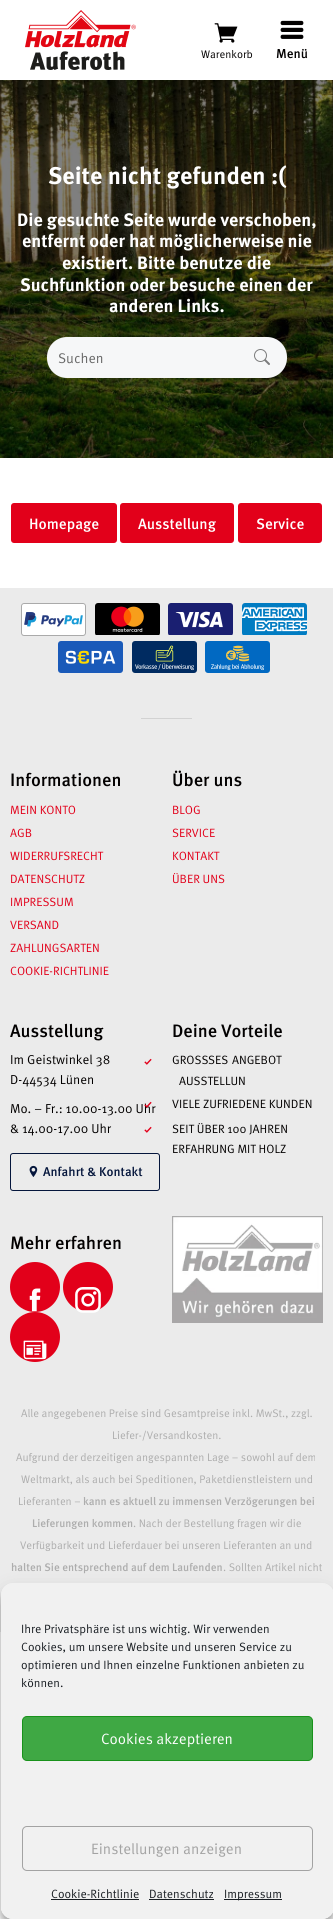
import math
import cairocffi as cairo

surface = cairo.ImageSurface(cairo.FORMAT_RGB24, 333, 1919)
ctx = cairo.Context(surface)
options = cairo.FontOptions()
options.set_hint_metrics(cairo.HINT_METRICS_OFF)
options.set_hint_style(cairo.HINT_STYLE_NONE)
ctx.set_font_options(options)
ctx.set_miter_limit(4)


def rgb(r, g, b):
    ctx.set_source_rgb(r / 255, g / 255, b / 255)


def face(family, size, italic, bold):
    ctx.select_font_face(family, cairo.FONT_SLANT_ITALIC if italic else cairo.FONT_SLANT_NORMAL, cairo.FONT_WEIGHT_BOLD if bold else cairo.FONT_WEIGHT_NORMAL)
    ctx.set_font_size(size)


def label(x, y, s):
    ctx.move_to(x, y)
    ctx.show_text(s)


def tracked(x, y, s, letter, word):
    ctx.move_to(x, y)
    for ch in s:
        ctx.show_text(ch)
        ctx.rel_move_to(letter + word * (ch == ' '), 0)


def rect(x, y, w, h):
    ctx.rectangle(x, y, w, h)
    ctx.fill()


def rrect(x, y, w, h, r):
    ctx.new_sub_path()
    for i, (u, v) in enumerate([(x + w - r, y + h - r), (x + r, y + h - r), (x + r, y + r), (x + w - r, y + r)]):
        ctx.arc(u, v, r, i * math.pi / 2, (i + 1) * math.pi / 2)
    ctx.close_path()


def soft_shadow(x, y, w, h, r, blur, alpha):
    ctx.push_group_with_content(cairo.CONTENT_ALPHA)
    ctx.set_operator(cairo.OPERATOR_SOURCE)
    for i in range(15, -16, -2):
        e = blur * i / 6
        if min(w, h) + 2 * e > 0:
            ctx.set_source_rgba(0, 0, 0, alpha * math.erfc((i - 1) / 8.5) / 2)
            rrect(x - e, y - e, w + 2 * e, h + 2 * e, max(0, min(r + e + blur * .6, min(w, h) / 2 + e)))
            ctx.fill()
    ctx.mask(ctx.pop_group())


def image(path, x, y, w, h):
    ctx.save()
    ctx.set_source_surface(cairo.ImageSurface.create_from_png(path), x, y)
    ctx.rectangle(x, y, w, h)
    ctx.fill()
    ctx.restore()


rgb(255, 255, 255)
ctx.paint()
image('image0.png', 25, 10, 111, 60)
image('image1.png', 214, 23, 24, 20)
face('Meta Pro', 11, 0, 0)
rgb(2, 0, 0)
label(201, 58, 'Warenkorb')
image('image2.png', 280, 20, 24, 19)
face('Meta Pro Medium', 13, 0, 0)
label(276, 58, 'Menü')
image('image3.png', 0, 80, 333, 378)
face('Meta Pro', 24, 0, 1)
rgb(255, 255, 255)
label(48, 184, 'Seite nicht gefunden :(')
face('Meta Pro', 18, 0, 1)
label(17, 226, 'Die gesuchte Seite wurde verschoben,')
label(22, 247, 'entfernt oder hat möglicherweise nie')
label(62, 269, 'existiert. Bitte benutze die')
label(20, 291, 'Suchfunktion oder besuche einen der')
label(109, 312, 'anderen Links.')
rgb(246, 247, 248)
rrect(47, 337, 240, 41, 20)
ctx.fill()
face('Meta Pro', 14, 0, 0)
rgb(104, 104, 104)
label(58, 363, 'Suchen')
image('image4.png', 254, 349, 16, 16)
rgb(226, 0, 26)
rrect(11, 503, 106, 40, 3)
ctx.fill()
face('Meta Pro Medium', 15, 0, 0)
rgb(255, 255, 255)
label(29, 529, 'Homepage')
rgb(226, 0, 26)
rrect(120, 503, 114, 40, 3)
ctx.fill()
rgb(255, 255, 255)
label(138, 529, 'Ausstellung')
rgb(226, 0, 26)
rrect(238, 503, 84, 40, 3)
ctx.fill()
rgb(255, 255, 255)
label(256, 529, 'Service')
rgb(235, 235, 235)
rect(0, 588, 333, 1044)
image('image5.png', 21, 603, 65, 32)
rrect(21.5, 603.5, 64, 32, 2.5)
rgb(170, 170, 170)
ctx.set_line_width(1)
ctx.stroke()
image('image6.png', 95, 603, 65, 32)
image('image7.png', 168, 603, 65, 32)
image('image8.png', 242, 603, 65, 32)
image('image9.png', 58, 641, 65, 32)
image('image10.png', 132, 641, 65, 32)
image('image11.png', 205, 641, 65, 32)
rgb(210, 210, 210)
rect(141, 718, 51, 1)
face('Meta Pro Medium', 18, 0, 0)
rgb(2, 0, 0)
label(10, 786, 'Informationen')
face('Meta Pro', 12, 0, 0)
rgb(226, 0, 26)
label(10, 814, 'MEIN KONTO')
label(10, 837, 'AGB')
label(10, 860, 'WIDERRUFSRECHT')
label(10, 883, 'DATENSCHUTZ')
label(10, 906, 'IMPRESSUM')
label(10, 929, 'VERSAND')
label(10, 952, 'ZAHLUNGSARTEN')
label(10, 975, 'COOKIE-RICHTLINIE')
face('Meta Pro Medium', 18, 0, 0)
rgb(2, 0, 0)
label(172, 786, 'Über uns')
face('Meta Pro', 12, 0, 0)
rgb(226, 0, 26)
label(172, 814, 'BLOG')
label(172, 837, 'SERVICE')
label(172, 860, 'KONTAKT')
label(172, 883, 'ÜBER UNS')
face('Meta Pro Medium', 18, 0, 0)
rgb(2, 0, 0)
label(10, 1037, 'Ausstellung')
face('Meta Pro', 13, 0, 0)
label(10, 1064, 'Im Geistwinkel 38')
label(10, 1084, 'D-44534 Lünen')
label(10, 1113, 'Mo. – Fr.: 10.00-13.00 Uhr')
label(10, 1133, '& 14.00-17.00 Uhr')
rrect(10.5, 1153.5, 149, 37, 2.5)
rgb(5, 22, 60)
ctx.stroke()
image('image12.png', 29, 1165, 9, 12)
face('Meta Pro Medium', 12.75, 0, 0)
label(43, 1176, 'Anfahrt & Kontakt')
face('Meta Pro Medium', 18, 0, 0)
rgb(2, 0, 0)
label(172, 1037, 'Deine Vorteile')
image('image13.png', 144, 1058, 8, 7)
face('Meta Pro', 12, 0, 0)
label(172, 1064, 'GROSS')
tracked(208, 1064, 'SES ANGEBOT', 0, 1)
label(179, 1085, 'AUSSTELLUN')
image('image14.png', 144, 1101, 8, 7)
label(172, 1108, 'VIELE ZUFRIEDENE KUNDEN')
image('image13.png', 144, 1126, 8, 7)
label(172, 1133, 'SEIT ÜBER 100 JAHREN')
label(172, 1153, 'ERFAHRUNG MIT HOLZ')
face('Meta Pro Medium', 18, 0, 0)
label(10, 1249, 'Mehr erfahren')
rgb(226, 0, 26)
ctx.new_path()
ctx.arc(35, 1287, 25, 0, 2 * math.pi)
ctx.fill()
image('image15.png', 29, 1288, 12, 24)
ctx.arc(88, 1287, 25, 0, 2 * math.pi)
ctx.fill()
image('image16.png', 75, 1287, 26, 26)
ctx.arc(35, 1337, 25, 0, 2 * math.pi)
ctx.fill()
image('image17.png', 23, 1340, 24, 20)
image('image18.png', 172, 1216, 151, 107)
face('Meta Pro', 11, 0, 0)
rgb(173, 173, 173)
label(21, 1417, 'Alle angegebenen Preise sind Gesamtpreise inkl. MwSt., zzgl.')
label(112, 1439, 'Liefer-/Versandkosten.')
label(16, 1461, 'Aufgrund der derzeitigen angespannten Lage – sowohl auf dem')
label(21, 1483, 'Weltmarkt, als auch bei Speditionen, Paketdienstleistern und')
label(18, 1505, 'Lieferanten –')
face('Meta Pro Medium', 11, 0, 0)
label(83, 1505, 'kann es aktuell zu immensen Verzögerungen bei')
label(32, 1527, 'Lieferungen kommen')
face('Meta Pro', 11, 0, 0)
label(133, 1527, '. Nach der Bestellung fragen wir die')
label(20, 1549, 'Verfügbarkeit und Lieferdauer bei unseren Lieferanten an und')
face('Meta Pro Medium', 11, 0, 0)
label(11, 1571, 'halten Sie entsprechend auf dem Laufenden')
face('Meta Pro', 11, 0, 0)
label(223, 1571, '. Sollten Artikel nicht')
ctx.save()
ctx.set_fill_rule(cairo.FILL_RULE_EVEN_ODD)
ctx.new_path()
ctx.move_to(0, 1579)
ctx.line_to(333, 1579)
ctx.line_to(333, 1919)
ctx.line_to(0, 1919)
ctx.close_path()
ctx.move_to(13, 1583)
ctx.line_to(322, 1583)
ctx.curve_to(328.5, 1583, 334, 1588.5, 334, 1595)
ctx.line_to(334, 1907)
ctx.curve_to(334, 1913.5, 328.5, 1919, 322, 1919)
ctx.line_to(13, 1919)
ctx.curve_to(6.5, 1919, 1, 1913.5, 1, 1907)
ctx.line_to(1, 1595)
ctx.curve_to(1, 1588.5, 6.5, 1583, 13, 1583)
ctx.close_path()
ctx.clip()
rgb(0, 0, 0)
soft_shadow(1, 1589, 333, 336, 12, 3, 0.23)
ctx.restore()
ctx.save()
ctx.set_fill_rule(cairo.FILL_RULE_EVEN_ODD)
ctx.new_path()
ctx.move_to(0, 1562)
ctx.line_to(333, 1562)
ctx.line_to(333, 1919)
ctx.line_to(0, 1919)
ctx.close_path()
ctx.move_to(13, 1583)
ctx.line_to(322, 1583)
ctx.curve_to(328.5, 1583, 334, 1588.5, 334, 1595)
ctx.line_to(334, 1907)
ctx.curve_to(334, 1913.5, 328.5, 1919, 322, 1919)
ctx.line_to(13, 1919)
ctx.curve_to(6.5, 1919, 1, 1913.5, 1, 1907)
ctx.line_to(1, 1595)
ctx.curve_to(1, 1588.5, 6.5, 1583, 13, 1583)
ctx.close_path()
ctx.clip()
rgb(0, 0, 0)
soft_shadow(1, 1593, 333, 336, 12, 10, 0.19)
ctx.restore()
rgb(241, 241, 241)
rrect(1.5, 1583.5, 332, 335, 11.5)
ctx.fill_preserve()
ctx.stroke()
face('Meta Pro', 12, 0, 0)
rgb(25, 30, 35)
label(21, 1633, 'Ihre Privatsphäre ist uns wichtig. Wir verwenden')
label(21, 1651, 'Cookies, um unsere Website und unseren Service zu')
label(21, 1669, 'optimieren und Ihnen einzelne Funktionen anbieten zu')
label(21, 1687, 'können.')
rgb(63, 168, 68)
rrect(22.5, 1716.5, 290, 44, 4.5)
ctx.fill_preserve()
rgb(24, 146, 27)
ctx.stroke()
face('Meta Pro', 15, 0, 0)
rgb(255, 255, 255)
label(101, 1744, 'Cookies akzeptieren')
rrect(22.5, 1826.5, 290, 44, 4.5)
rgb(163, 163, 163)
ctx.stroke()
label(91, 1854, 'Einstellungen anzeigen')
face('Meta Pro', 12, 0, 0)
rgb(25, 30, 35)
label(51, 1898, 'Cookie-Richtlinie')
rect(51, 1899, 88, 1)
label(149, 1898, 'Datenschutz')
rect(149, 1899, 65, 1)
rect(224, 1899, 58, 1)
label(224, 1898, 'Impressum')
surface.write_to_png('render.png')
